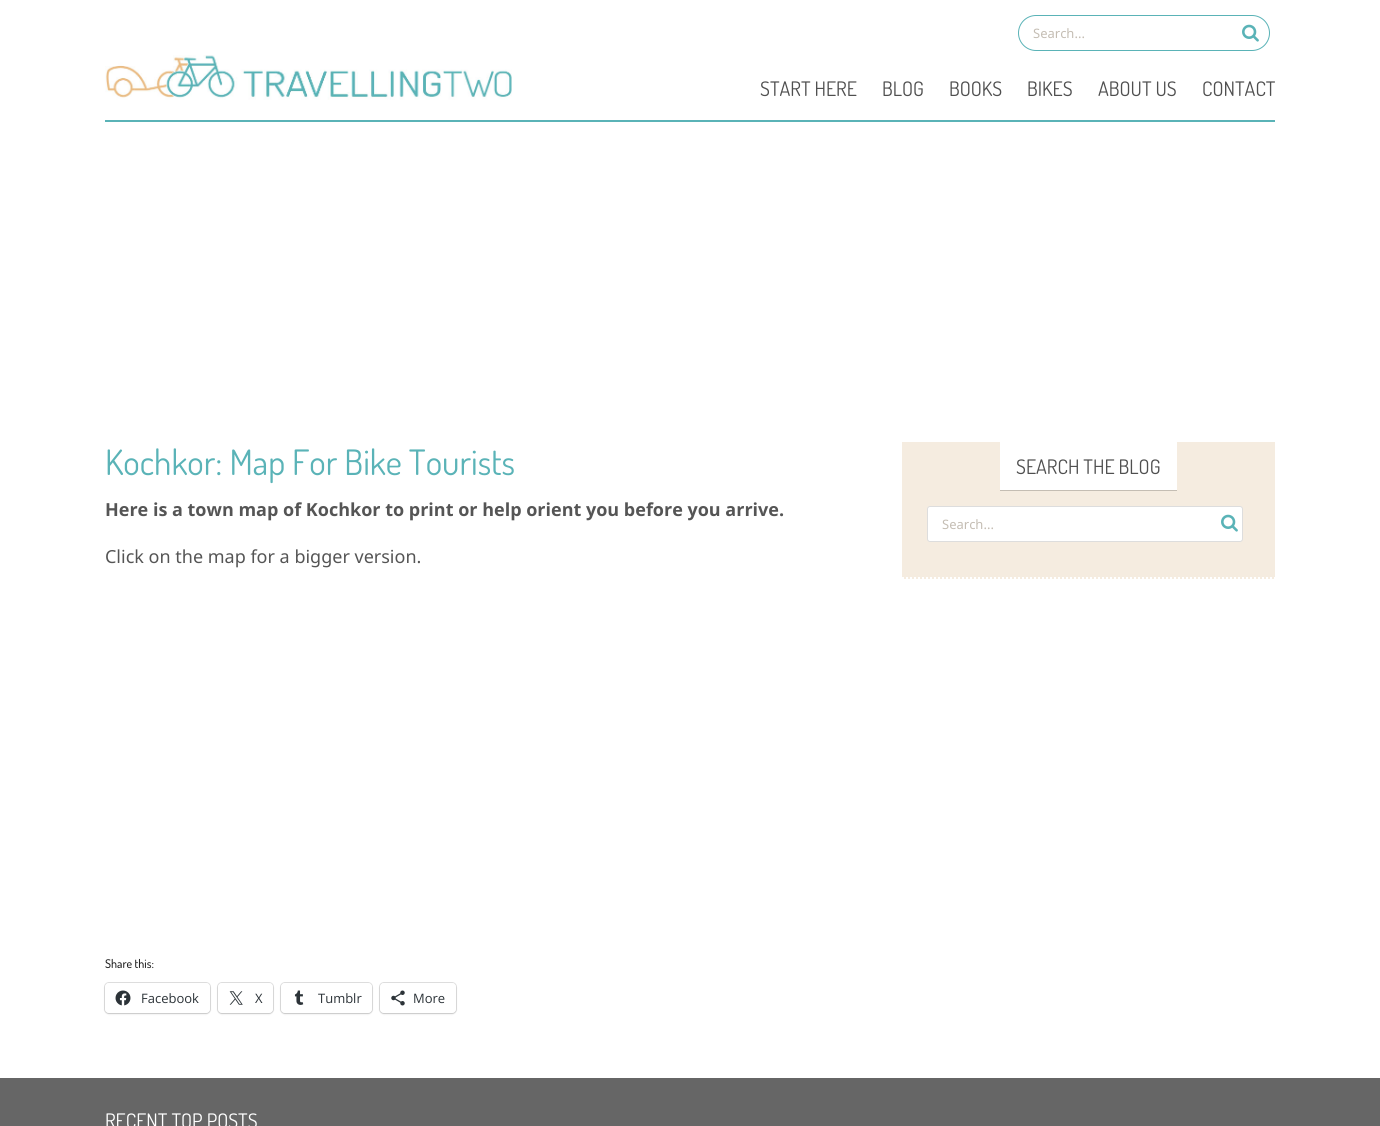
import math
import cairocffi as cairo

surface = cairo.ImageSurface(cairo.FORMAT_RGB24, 1380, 1126)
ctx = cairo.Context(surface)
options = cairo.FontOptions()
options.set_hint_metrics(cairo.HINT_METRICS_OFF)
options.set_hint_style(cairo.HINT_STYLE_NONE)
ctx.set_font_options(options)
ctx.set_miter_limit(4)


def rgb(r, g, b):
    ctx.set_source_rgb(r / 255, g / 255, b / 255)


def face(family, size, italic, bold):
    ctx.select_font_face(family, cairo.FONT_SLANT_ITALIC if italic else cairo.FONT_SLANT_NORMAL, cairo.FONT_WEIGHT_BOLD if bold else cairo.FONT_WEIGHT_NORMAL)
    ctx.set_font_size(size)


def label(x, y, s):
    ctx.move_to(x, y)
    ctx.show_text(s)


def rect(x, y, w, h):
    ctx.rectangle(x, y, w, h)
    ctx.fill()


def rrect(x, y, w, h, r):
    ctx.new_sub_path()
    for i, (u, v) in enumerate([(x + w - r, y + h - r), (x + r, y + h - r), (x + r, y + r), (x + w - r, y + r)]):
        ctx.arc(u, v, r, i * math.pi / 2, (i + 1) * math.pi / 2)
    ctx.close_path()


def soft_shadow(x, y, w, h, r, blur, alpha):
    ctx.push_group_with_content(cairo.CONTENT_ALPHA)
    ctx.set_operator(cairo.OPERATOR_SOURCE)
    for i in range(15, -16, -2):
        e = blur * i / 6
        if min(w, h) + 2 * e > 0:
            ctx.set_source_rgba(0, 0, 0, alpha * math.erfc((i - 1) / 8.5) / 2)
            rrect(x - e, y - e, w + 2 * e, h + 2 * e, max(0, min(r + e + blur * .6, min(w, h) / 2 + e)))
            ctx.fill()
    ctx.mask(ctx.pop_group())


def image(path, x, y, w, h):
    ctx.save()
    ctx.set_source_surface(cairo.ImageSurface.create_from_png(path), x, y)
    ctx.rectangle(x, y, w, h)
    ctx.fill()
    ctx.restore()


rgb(255, 255, 255)
ctx.paint()
rrect(1018.5, 15.5, 251, 35, 17.5)
rgb(90, 179, 183)
ctx.set_line_width(1)
ctx.stroke()
face('Noto Sans', 13, 0, 0)
rgb(196, 189, 179)
label(1033, 38, 'Search...')
image('image0.png', 1242, 24, 17, 18)
image('image1.png', 105, 55, 407, 45)
face('Dosis', 20, 0, 0)
rgb(79, 79, 79)
label(760, 96, 'START HERE')
label(882, 96, 'BLOG')
label(949, 96, 'BOOKS')
label(1027, 96, 'BIKES')
label(1098, 96, 'ABOUT US')
label(1202, 96, 'CONTACT')
rgb(90, 179, 183)
rect(105, 120, 1170, 2)
face('Dosis', 35, 0, 0)
label(105, 475, 'Kochkor: Map For Bike Tourists')
face('Noto Sans', 18, 0, 1)
rgb(85, 85, 85)
label(105, 516, 'Here is a town map of Kochkor to print or help orient you before you arrive.')
face('Noto Sans', 18, 0, 0)
label(105, 563, 'Click on the map for a bigger version.')
face('Dosis Medium', 12, 0, 0)
rgb(34, 34, 34)
label(105, 968, 'Share this:')
rrect(104.5, 982.5, 106, 31, 4.5)
rgb(224, 224, 224)
ctx.stroke()
rgb(0, 0, 0)
soft_shadow(105, 984, 105, 30, 4, 1, 0.12)
rgb(255, 255, 255)
rrect(105, 983, 105, 30, 4)
ctx.fill()
image('image2.png', 115, 990, 16, 16)
face('Open Sans', 13, 0, 0)
rgb(44, 51, 56)
label(141, 1003, 'Facebook')
rrect(217.5, 982.5, 56, 31, 4.5)
rgb(224, 224, 224)
ctx.stroke()
rgb(0, 0, 0)
soft_shadow(218, 984, 55, 30, 4, 1, 0.12)
rgb(255, 255, 255)
rrect(218, 983, 55, 30, 4)
ctx.fill()
image('image3.png', 229, 991, 14, 14)
rgb(44, 51, 56)
label(255, 1003, 'X')
rrect(280.5, 982.5, 92, 31, 4.5)
rgb(224, 224, 224)
ctx.stroke()
rgb(0, 0, 0)
soft_shadow(281, 984, 91, 30, 4, 1, 0.12)
rgb(255, 255, 255)
rrect(281, 983, 91, 30, 4)
ctx.fill()
image('image4.png', 294, 990, 10, 15)
rgb(44, 51, 56)
label(318, 1003, 'Tumblr')
rrect(379.5, 982.5, 77, 31, 4.5)
rgb(224, 224, 224)
ctx.stroke()
rgb(0, 0, 0)
soft_shadow(380, 984, 76, 30, 4, 1, 0.12)
rgb(255, 255, 255)
rrect(380, 983, 76, 30, 4)
ctx.fill()
image('image5.png', 391, 990, 14, 16)
rgb(44, 51, 56)
label(413, 1003, 'More')
rgb(245, 236, 224)
rect(902, 442, 373, 137)
ctx.new_path()
ctx.move_to(902, 578)
ctx.line_to(1275, 578)
rgb(255, 255, 255)
ctx.set_line_width(2)
ctx.set_dash([2, 2])
ctx.stroke()
rect(1000, 442, 177, 48)
rgb(196, 189, 179)
rect(1000, 490, 177, 1)
face('Dosis', 20, 0, 0)
rgb(79, 79, 79)
label(1016, 474, 'SEARCH THE BLOG')
rgb(255, 255, 255)
rrect(927.5, 506.5, 315, 35, 2.5)
ctx.fill_preserve()
rgb(221, 221, 221)
ctx.set_line_width(1)
ctx.set_dash([])
ctx.stroke()
face('Noto Sans', 13, 0, 0)
rgb(196, 189, 179)
label(942, 529, 'Search...')
image('image0.png', 1221, 514, 17, 18)
rgb(102, 102, 102)
rect(0, 1078, 1380, 48)
face('Dosis', 20, 0, 0)
rgb(255, 255, 255)
label(105, 1128, 'RECENT TOP POSTS')
surface.write_to_png('render.png')
